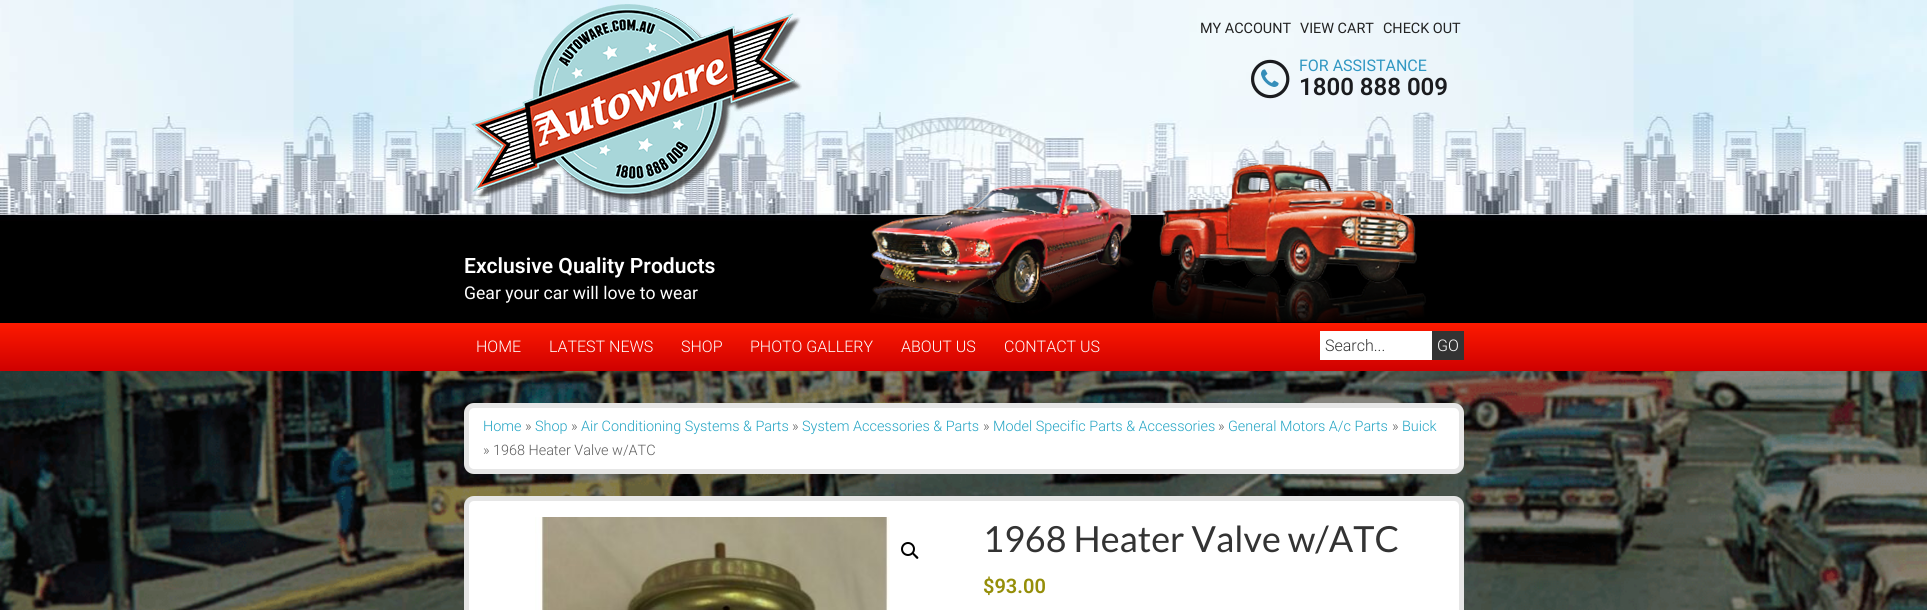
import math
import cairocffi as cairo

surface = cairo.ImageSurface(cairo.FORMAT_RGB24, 1927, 610)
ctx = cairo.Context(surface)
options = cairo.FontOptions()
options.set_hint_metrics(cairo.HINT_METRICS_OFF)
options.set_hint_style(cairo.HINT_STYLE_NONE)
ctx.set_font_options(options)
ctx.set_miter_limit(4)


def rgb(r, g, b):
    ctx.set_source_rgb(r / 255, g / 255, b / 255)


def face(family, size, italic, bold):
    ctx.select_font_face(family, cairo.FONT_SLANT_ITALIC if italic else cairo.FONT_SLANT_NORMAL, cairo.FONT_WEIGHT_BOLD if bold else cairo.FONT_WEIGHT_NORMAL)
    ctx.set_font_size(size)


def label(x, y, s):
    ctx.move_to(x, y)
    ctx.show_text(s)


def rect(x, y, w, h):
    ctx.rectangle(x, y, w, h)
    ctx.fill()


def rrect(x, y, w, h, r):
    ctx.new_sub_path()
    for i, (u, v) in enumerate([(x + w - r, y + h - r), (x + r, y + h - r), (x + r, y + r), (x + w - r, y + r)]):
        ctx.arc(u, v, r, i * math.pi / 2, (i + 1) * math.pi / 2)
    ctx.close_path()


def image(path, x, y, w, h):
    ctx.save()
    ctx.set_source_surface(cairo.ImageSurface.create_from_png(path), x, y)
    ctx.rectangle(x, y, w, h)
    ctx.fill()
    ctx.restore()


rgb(0, 0, 0)
ctx.paint()
image('image0.png', 0, 0, 1927, 221)
image('image1.png', 870, 163, 556, 159)
image('image2.png', 471, 4, 331, 198)
face('Roboto', 14.4, 0, 0)
rgb(34, 34, 34)
label(1200, 33, 'MY ACCOUNT')
label(1300, 33, 'VIEW CART')
label(1383, 33, 'CHECK OUT')
image('image3.png', 1251, 59, 39, 40)
image('image4.png', 1261, 69, 18, 18)
face('Roboto', 16, 0, 0)
rgb(48, 151, 194)
label(1299, 71, 'FOR ASSISTANCE')
face('Roboto SemiBold', 24, 0, 0)
rgb(27, 28, 31)
label(1299, 95, '1800 888 009')
face('Roboto SemiBold', 21.1, 0, 0)
rgb(255, 255, 255)
label(464, 273, 'Exclusive Quality Products')
face('Roboto', 17.6, 0, 0)
label(464, 299, 'Gear your car will love to wear')
gradient = cairo.LinearGradient(964, 323, 964, 371)
gradient.add_color_stop_rgba(0, 0.996, 0.102, 0, 1)
gradient.add_color_stop_rgba(1, 0.808, 0, 0, 1)
ctx.set_source(gradient)
rect(0, 323, 1927, 48)
face('Roboto Light', 16, 0, 0)
rgb(255, 255, 255)
label(476, 352, 'HOME')
label(549, 352, 'LATEST NEWS')
label(681, 352, 'SHOP')
label(750, 352, 'PHOTO GALLERY')
label(901, 352, 'ABOUT US')
label(1004, 352, 'CONTACT US')
rect(1320, 331, 112, 29)
rgb(51, 51, 51)
label(1325, 351, 'Search...')
rect(1432, 331, 32, 29)
rgb(255, 255, 255)
label(1437, 351, 'GO')
image('image5.png', 0, 371, 1927, 239)
rrect(464, 403, 1000, 71, 10)
ctx.fill()
rrect(466.5, 405.5, 995, 66, 7.5)
ctx.set_source_rgba(0, 0, 0, 0.1)
ctx.set_line_width(5)
ctx.stroke()
face('Roboto Light', 14.4, 0, 0)
rgb(35, 164, 196)
label(483, 431, 'Home')
rgb(93, 93, 93)
label(525, 431, '»')
rgb(35, 164, 196)
label(535, 431, 'Shop')
rgb(93, 93, 93)
label(571, 431, '»')
rgb(35, 164, 196)
label(581, 431, 'Air Conditioning Systems & Parts')
rgb(93, 93, 93)
label(792, 431, '»')
rgb(35, 164, 196)
label(802, 431, 'System Accessories & Parts')
rgb(93, 93, 93)
label(983, 431, '»')
rgb(35, 164, 196)
label(993, 431, 'Model Specific Parts & Accessories')
rgb(93, 93, 93)
label(1218, 431, '»')
rgb(35, 164, 196)
label(1228, 431, 'General Motors A/c Parts')
rgb(93, 93, 93)
label(1392, 431, '»')
rgb(35, 164, 196)
label(1402, 431, 'Buick')
rgb(93, 93, 93)
label(483, 455, '» 1968 Heater Valve w/ATC')
rgb(255, 255, 255)
rrect(464, 496, 1000, 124, 10)
ctx.fill()
rrect(466.5, 498.5, 995, 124, 7.5)
ctx.set_source_rgba(0, 0, 0, 0.1)
ctx.stroke()
image('image6.png', 535, 517, 355, 93)
ctx.arc(908, 549, 6, 0, 2 * math.pi)
rgb(0, 0, 0)
ctx.set_line_width(2)
ctx.stroke()
ctx.new_path()
ctx.move_to(912.5, 553)
ctx.curve_to(913.5, 552, 915.5, 554.5, 916, 555)
ctx.curve_to(916.5, 555.5, 919.5, 557.5, 918, 558.5)
ctx.curve_to(917, 560, 915, 557, 914.5, 556.5)
ctx.curve_to(914, 556, 911.5, 554, 912.5, 553)
ctx.close_path()
ctx.fill()
face('Lato', 36, 0, 0)
rgb(51, 51, 51)
label(983, 552, '1968 Heater Valve w/ATC')
face('Roboto SemiBold', 20, 0, 0)
rgb(149, 142, 9)
label(983, 593, '$93.00')
surface.write_to_png('render.png')
